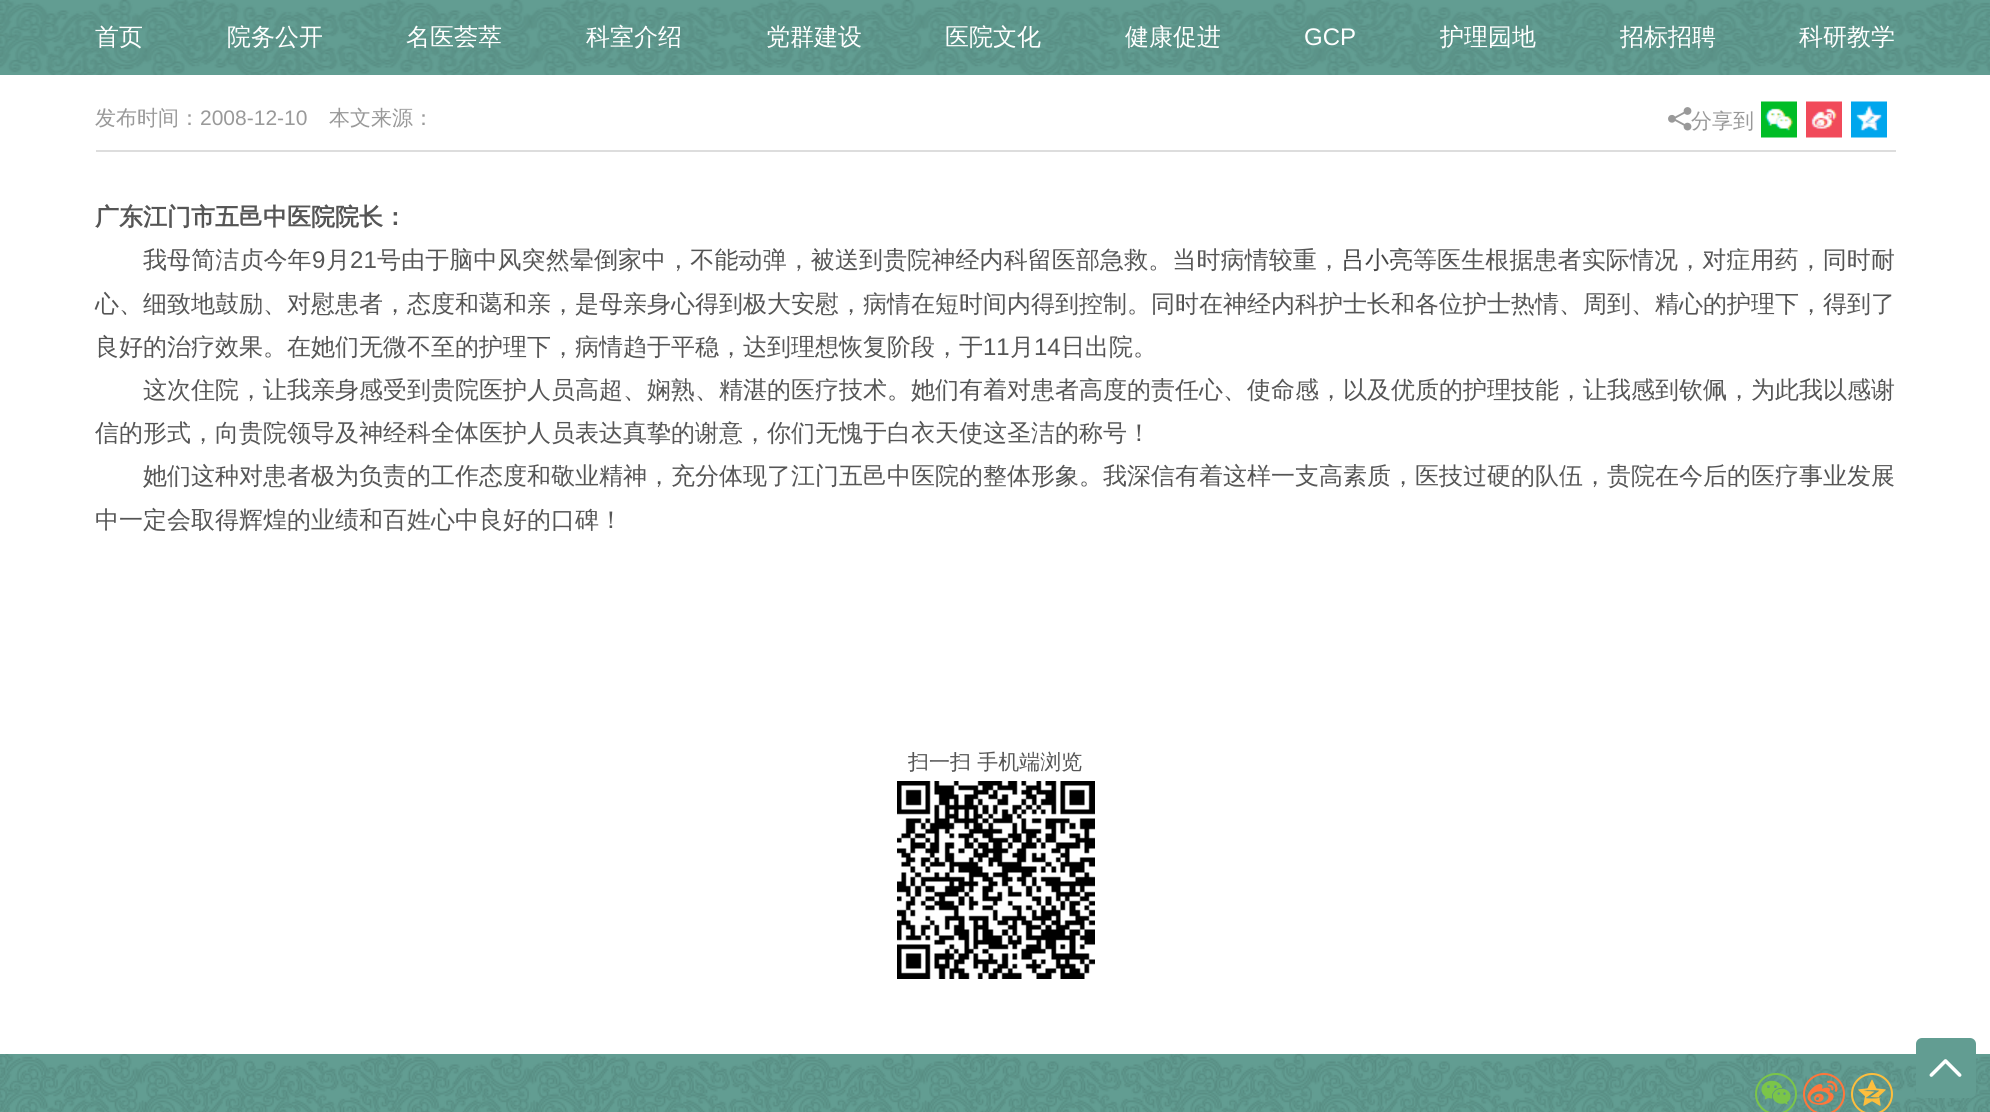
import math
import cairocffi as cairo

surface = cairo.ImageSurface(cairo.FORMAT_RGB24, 1990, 1112)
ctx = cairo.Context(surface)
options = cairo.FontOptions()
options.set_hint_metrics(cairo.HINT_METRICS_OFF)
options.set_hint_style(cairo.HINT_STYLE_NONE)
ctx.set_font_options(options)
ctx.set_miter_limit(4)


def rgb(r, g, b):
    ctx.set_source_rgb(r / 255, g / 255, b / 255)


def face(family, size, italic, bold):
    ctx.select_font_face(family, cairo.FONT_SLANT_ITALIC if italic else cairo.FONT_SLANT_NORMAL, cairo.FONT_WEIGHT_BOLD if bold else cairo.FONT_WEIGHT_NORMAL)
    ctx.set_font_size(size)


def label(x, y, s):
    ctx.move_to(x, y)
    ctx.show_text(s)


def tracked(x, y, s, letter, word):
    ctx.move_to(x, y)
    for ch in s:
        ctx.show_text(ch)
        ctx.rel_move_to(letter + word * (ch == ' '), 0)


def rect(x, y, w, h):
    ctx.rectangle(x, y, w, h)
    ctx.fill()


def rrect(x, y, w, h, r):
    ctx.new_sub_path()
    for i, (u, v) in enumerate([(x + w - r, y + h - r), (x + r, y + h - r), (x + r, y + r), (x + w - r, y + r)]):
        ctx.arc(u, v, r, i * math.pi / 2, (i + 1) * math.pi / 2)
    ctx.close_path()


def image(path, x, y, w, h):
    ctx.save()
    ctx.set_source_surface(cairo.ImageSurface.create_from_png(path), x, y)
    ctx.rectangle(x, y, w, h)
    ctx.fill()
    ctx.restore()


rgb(255, 255, 255)
ctx.paint()
image('image0.png', 0, 0, 1990, 75)
face('WenQuanYi Zen Hei Medium', 24, 0, 0)
rgb(255, 255, 255)
label(95, 45, '首页')
label(227, 45, '院务公开')
label(406, 45, '名医荟萃')
label(586, 45, '科室介绍')
label(766, 45, '党群建设')
label(945, 45, '医院文化')
label(1125, 45, '健康促进')
face('Liberation Sans', 24, 0, 0)
label(1304, 45, 'GCP')
face('WenQuanYi Zen Hei Medium', 24, 0, 0)
label(1440, 45, '护理园地')
label(1620, 45, '招标招聘')
label(1799, 45, '科研教学')
rgb(221, 221, 221)
rect(96, 150, 1800, 2)
face('WenQuanYi Zen Hei Medium', 21, 0, 0)
rgb(153, 153, 153)
label(95, 125, '发布时间：')
face('Liberation Sans', 21, 0, 0)
label(200, 125, '2008-12-10')
face('WenQuanYi Zen Hei Medium', 21, 0, 0)
label(329, 125, '本文来源：')
image('image1.png', 1668, 107, 24, 24)
label(1691, 128, '分享到')
image('image2.png', 1761, 101, 36, 37)
image('image3.png', 1806, 101, 36, 37)
image('image4.png', 1851, 101, 36, 37)
face('WenQuanYi Zen Hei', 24, 0, 1)
rgb(85, 85, 85)
label(95, 225, '广东江门市五邑中医院院长：')
face('WenQuanYi Zen Hei Medium', 24, 0, 0)
tracked(143, 268, '我母简洁贞今年', 0.1, 0)
face('Liberation Sans', 24, 0, 0)
tracked(312, 268, '9', 0.1, 0)
face('WenQuanYi Zen Hei Medium', 24, 0, 0)
tracked(326, 268, '月', 0.1, 0)
face('Liberation Sans', 24, 0, 0)
tracked(350, 268, '21', 0.1, 0)
face('WenQuanYi Zen Hei Medium', 24, 0, 0)
tracked(377, 268, '号由于脑中风突然晕倒家中，不能动弹，被送到贵院神经内科留医部急救。当时病情较重，', 0.1, 0)
rgb(68, 68, 68)
label(1341, 268, '吕小亮')
rgb(85, 85, 85)
tracked(1413, 268, '等医生根据患者实际情况，对症用药，同时耐', 0.1, 0)
label(95, 312, '心、细致地鼓励、对慰患者，态度和蔼和亲，是母亲身心得到极大安慰，病情在短时间内得到控制。同时在神经内科护士长和各位护士热情、周到、精心的护理下，得到了')
label(95, 355, '良好的治疗效果。在她们无微不至的护理下，病情趋于平稳，达到理想恢复阶段，于')
face('Liberation Sans', 24, 0, 0)
label(983, 355, '11')
face('WenQuanYi Zen Hei Medium', 24, 0, 0)
label(1010, 355, '月')
face('Liberation Sans', 24, 0, 0)
label(1034, 355, '14')
face('WenQuanYi Zen Hei Medium', 24, 0, 0)
label(1061, 355, '日出院。')
label(143, 398, '这次住院，让我亲身感受到贵院医护人员高超、娴熟、精湛的医疗技术。她们有着对患者高度的责任心、使命感，以及优质的护理技能，让我感到钦佩，为此我以感谢')
label(95, 441, '信的形式，向贵院领导及神经科全体医护人员表达真挚的谢意，你们无愧于白衣天使这圣洁的称号！')
label(143, 484, '她们这种对患者极为负责的工作态度和敬业精神，充分体现了江门五邑中医院的整体形象。我深信有着这样一支高素质，医技过硬的队伍，贵院在今后的医疗事业发展')
label(95, 528, '中一定会取得辉煌的业绩和百姓心中良好的口碑！')
face('WenQuanYi Zen Hei Medium', 21, 0, 0)
label(908, 769, '扫一扫 手机端浏览')
image('image5.png', 897, 781, 198, 198)
image('image7.png', 0, 1054, 1990, 58)
rgb(98, 157, 146)
rrect(1916, 1038, 60, 60, 6)
ctx.fill()
image('image6.png', 1929, 1059, 33, 18)
ctx.arc(1776, 1094, 20, 0, 2 * math.pi)
rgb(123, 197, 73)
ctx.stroke()
image('image8.png', 1761, 1080, 30, 25)
ctx.arc(1824, 1094, 20, 0, 2 * math.pi)
rgb(255, 118, 59)
ctx.stroke()
image('image9.png', 1807, 1080, 31, 25)
ctx.arc(1872, 1094, 20, 0, 2 * math.pi)
rgb(253, 190, 61)
ctx.stroke()
image('image10.png', 1858, 1079, 28, 27)
surface.write_to_png('render.png')
